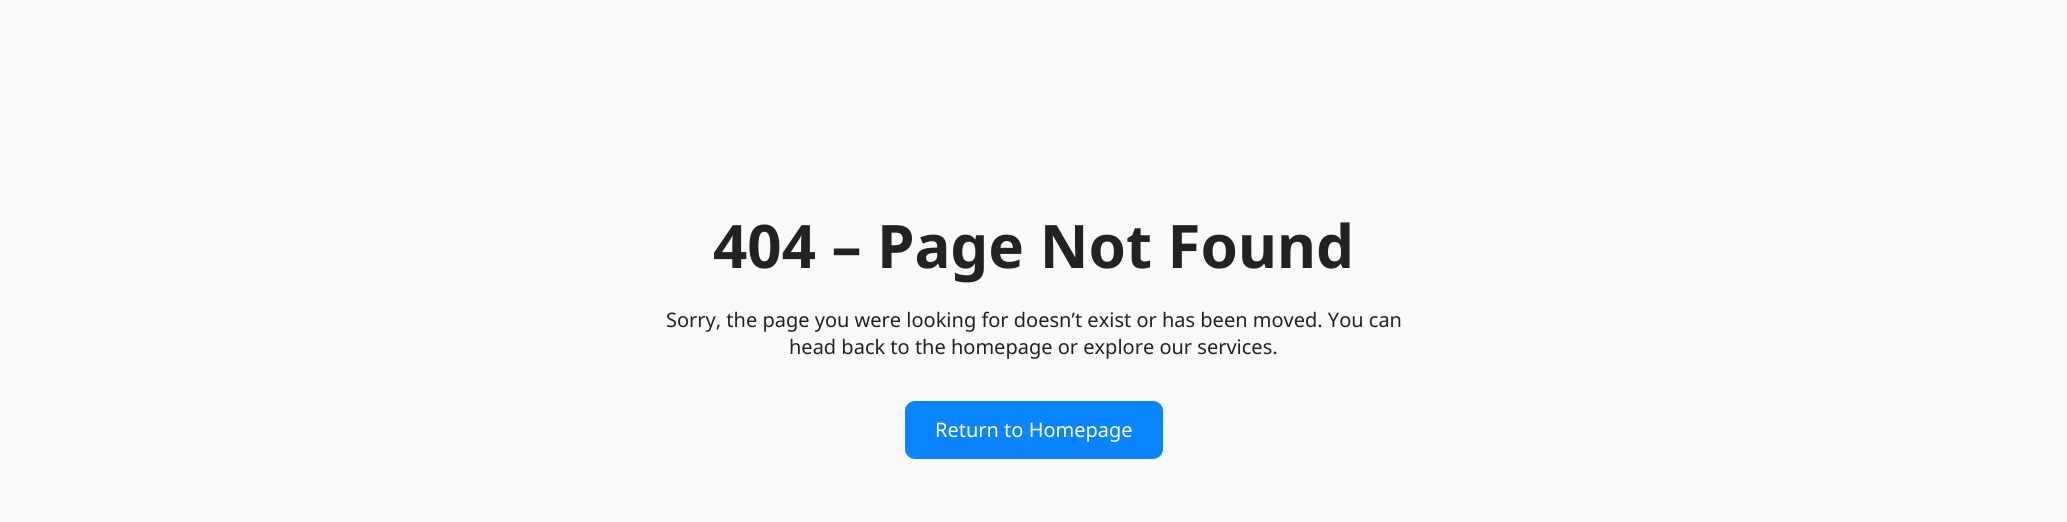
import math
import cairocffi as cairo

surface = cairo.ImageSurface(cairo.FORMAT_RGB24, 2067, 522)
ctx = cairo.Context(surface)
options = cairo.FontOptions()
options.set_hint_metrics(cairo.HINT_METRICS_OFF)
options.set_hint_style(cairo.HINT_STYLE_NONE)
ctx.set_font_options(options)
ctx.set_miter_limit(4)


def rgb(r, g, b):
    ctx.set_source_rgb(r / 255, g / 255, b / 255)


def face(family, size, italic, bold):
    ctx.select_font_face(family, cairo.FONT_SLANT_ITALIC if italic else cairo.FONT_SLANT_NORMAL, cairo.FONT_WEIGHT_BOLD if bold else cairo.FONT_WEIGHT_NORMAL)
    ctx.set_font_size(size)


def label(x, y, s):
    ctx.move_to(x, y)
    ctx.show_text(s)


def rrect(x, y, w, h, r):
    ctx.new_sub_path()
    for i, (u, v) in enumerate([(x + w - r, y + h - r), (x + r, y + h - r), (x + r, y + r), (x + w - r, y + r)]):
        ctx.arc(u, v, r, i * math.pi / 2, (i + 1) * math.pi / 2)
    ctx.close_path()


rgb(250, 250, 250)
ctx.paint()
face('Noto Sans', 60, 0, 1)
rgb(34, 34, 34)
label(713, 268, '404 – Page Not Found')
face('Noto Sans', 20, 0, 0)
label(666, 327, 'Sorry, the page you were looking for doesn’t exist or has been moved. You can')
label(789, 354, 'head back to the homepage or explore our services.')
rgb(10, 132, 255)
rrect(905, 401, 258, 58, 10)
ctx.fill()
rgb(255, 255, 255)
label(935, 437, 'Return to Homepage')
surface.write_to_png('render.png')
